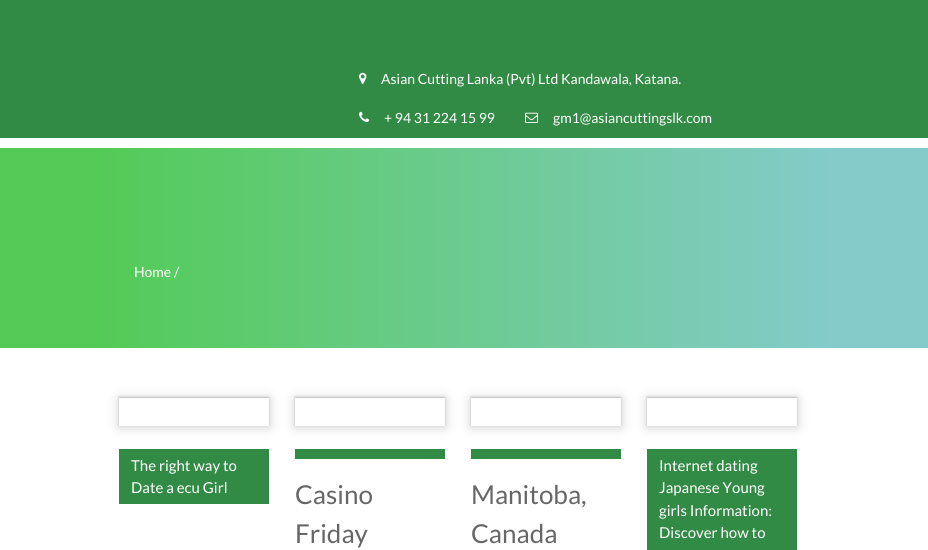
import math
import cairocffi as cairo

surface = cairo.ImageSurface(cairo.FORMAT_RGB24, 928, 550)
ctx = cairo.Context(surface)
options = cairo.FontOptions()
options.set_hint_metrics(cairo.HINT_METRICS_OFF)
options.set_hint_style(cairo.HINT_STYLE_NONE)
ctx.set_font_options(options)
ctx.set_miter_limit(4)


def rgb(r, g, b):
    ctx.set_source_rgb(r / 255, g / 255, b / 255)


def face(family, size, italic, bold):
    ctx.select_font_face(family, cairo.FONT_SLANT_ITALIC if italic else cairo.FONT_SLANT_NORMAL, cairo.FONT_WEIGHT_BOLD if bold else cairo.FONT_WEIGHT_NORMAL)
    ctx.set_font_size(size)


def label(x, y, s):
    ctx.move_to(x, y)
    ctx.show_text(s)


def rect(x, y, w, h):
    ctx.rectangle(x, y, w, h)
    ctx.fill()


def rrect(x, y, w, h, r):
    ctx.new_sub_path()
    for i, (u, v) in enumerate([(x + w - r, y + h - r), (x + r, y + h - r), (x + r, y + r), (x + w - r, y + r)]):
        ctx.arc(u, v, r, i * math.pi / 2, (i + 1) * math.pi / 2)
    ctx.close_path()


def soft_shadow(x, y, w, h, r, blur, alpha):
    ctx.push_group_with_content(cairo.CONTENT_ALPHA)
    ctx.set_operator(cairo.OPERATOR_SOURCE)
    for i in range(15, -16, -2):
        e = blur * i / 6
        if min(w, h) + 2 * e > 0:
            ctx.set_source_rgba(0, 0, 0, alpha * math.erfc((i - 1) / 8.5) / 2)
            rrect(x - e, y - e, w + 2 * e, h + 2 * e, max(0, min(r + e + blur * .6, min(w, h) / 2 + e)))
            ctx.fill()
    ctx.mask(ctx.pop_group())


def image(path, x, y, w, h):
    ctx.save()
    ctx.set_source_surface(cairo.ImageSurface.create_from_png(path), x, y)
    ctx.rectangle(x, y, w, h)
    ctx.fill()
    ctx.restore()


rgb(255, 255, 255)
ctx.paint()
rgb(49, 139, 69)
rect(0, 0, 928, 138)
image('image0.png', 359, 72, 8, 12)
face('Lato', 14, 0, 0)
rgb(255, 255, 255)
label(381, 84, 'Asian Cutting Lanka (Pvt) Ltd Kandawala, Katana.')
image('image1.png', 359, 111, 11, 11)
label(384, 123, '+ 94 31 224 15 99')
image('image2.png', 525, 112, 13, 11)
label(553, 123, 'gm1@asiancuttingslk.com')
gradient = cairo.LinearGradient(0, 248, 928, 248)
gradient.add_color_stop_rgba(0.1, 0.325, 0.796, 0.337, 1)
gradient.add_color_stop_rgba(0.9, 0.518, 0.796, 0.792, 1)
ctx.set_source(gradient)
rect(0, 148, 928, 200)
rgb(255, 255, 255)
label(134, 277, 'Home /')
ctx.save()
ctx.set_fill_rule(cairo.FILL_RULE_EVEN_ODD)
ctx.new_path()
ctx.move_to(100, 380)
ctx.line_to(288, 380)
ctx.line_to(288, 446)
ctx.line_to(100, 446)
ctx.close_path()
ctx.move_to(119, 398)
ctx.line_to(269, 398)
ctx.line_to(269, 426)
ctx.line_to(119, 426)
ctx.close_path()
ctx.clip()
rgb(0, 0, 0)
soft_shadow(119, 399, 150, 28, 0, 6, 0.19)
ctx.restore()
ctx.save()
ctx.set_fill_rule(cairo.FILL_RULE_EVEN_ODD)
ctx.new_path()
ctx.move_to(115, 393)
ctx.line_to(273, 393)
ctx.line_to(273, 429)
ctx.line_to(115, 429)
ctx.close_path()
ctx.move_to(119, 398)
ctx.line_to(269, 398)
ctx.line_to(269, 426)
ctx.line_to(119, 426)
ctx.close_path()
ctx.clip()
rgb(0, 0, 0)
soft_shadow(119, 397, 150, 28, 0, 1, 0.2)
ctx.restore()
rgb(49, 139, 69)
rect(119, 449, 150, 55)
face('Lato', 15, 0, 0)
rgb(255, 255, 255)
label(131, 471, 'The right way to')
label(131, 493, 'Date a ecu Girl')
ctx.save()
ctx.set_fill_rule(cairo.FILL_RULE_EVEN_ODD)
ctx.new_path()
ctx.move_to(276, 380)
ctx.line_to(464, 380)
ctx.line_to(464, 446)
ctx.line_to(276, 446)
ctx.close_path()
ctx.move_to(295, 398)
ctx.line_to(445, 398)
ctx.line_to(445, 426)
ctx.line_to(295, 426)
ctx.close_path()
ctx.clip()
rgb(0, 0, 0)
soft_shadow(295, 399, 150, 28, 0, 6, 0.19)
ctx.restore()
ctx.save()
ctx.set_fill_rule(cairo.FILL_RULE_EVEN_ODD)
ctx.new_path()
ctx.move_to(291, 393)
ctx.line_to(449, 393)
ctx.line_to(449, 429)
ctx.line_to(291, 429)
ctx.close_path()
ctx.move_to(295, 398)
ctx.line_to(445, 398)
ctx.line_to(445, 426)
ctx.line_to(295, 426)
ctx.close_path()
ctx.clip()
rgb(0, 0, 0)
soft_shadow(295, 397, 150, 28, 0, 1, 0.2)
ctx.restore()
rgb(49, 139, 69)
rect(295, 449, 150, 10)
face('Lato', 26, 0, 0)
rgb(102, 102, 102)
label(295, 504, 'Casino')
label(295, 543, 'Friday')
ctx.save()
ctx.set_fill_rule(cairo.FILL_RULE_EVEN_ODD)
ctx.new_path()
ctx.move_to(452, 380)
ctx.line_to(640, 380)
ctx.line_to(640, 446)
ctx.line_to(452, 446)
ctx.close_path()
ctx.move_to(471, 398)
ctx.line_to(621, 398)
ctx.line_to(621, 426)
ctx.line_to(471, 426)
ctx.close_path()
ctx.clip()
rgb(0, 0, 0)
soft_shadow(471, 399, 150, 28, 0, 6, 0.19)
ctx.restore()
ctx.save()
ctx.set_fill_rule(cairo.FILL_RULE_EVEN_ODD)
ctx.new_path()
ctx.move_to(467, 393)
ctx.line_to(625, 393)
ctx.line_to(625, 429)
ctx.line_to(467, 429)
ctx.close_path()
ctx.move_to(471, 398)
ctx.line_to(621, 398)
ctx.line_to(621, 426)
ctx.line_to(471, 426)
ctx.close_path()
ctx.clip()
rgb(0, 0, 0)
soft_shadow(471, 397, 150, 28, 0, 1, 0.2)
ctx.restore()
rgb(49, 139, 69)
rect(471, 449, 150, 10)
rgb(102, 102, 102)
label(471, 504, 'Manitoba,')
label(471, 543, 'Canada')
ctx.save()
ctx.set_fill_rule(cairo.FILL_RULE_EVEN_ODD)
ctx.new_path()
ctx.move_to(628, 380)
ctx.line_to(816, 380)
ctx.line_to(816, 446)
ctx.line_to(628, 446)
ctx.close_path()
ctx.move_to(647, 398)
ctx.line_to(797, 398)
ctx.line_to(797, 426)
ctx.line_to(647, 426)
ctx.close_path()
ctx.clip()
rgb(0, 0, 0)
soft_shadow(647, 399, 150, 28, 0, 6, 0.19)
ctx.restore()
ctx.save()
ctx.set_fill_rule(cairo.FILL_RULE_EVEN_ODD)
ctx.new_path()
ctx.move_to(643, 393)
ctx.line_to(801, 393)
ctx.line_to(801, 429)
ctx.line_to(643, 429)
ctx.close_path()
ctx.move_to(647, 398)
ctx.line_to(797, 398)
ctx.line_to(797, 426)
ctx.line_to(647, 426)
ctx.close_path()
ctx.clip()
rgb(0, 0, 0)
soft_shadow(647, 397, 150, 28, 0, 1, 0.2)
ctx.restore()
rgb(49, 139, 69)
rect(647, 449, 150, 101)
face('Lato', 15, 0, 0)
rgb(255, 255, 255)
label(659, 471, 'Internet dating')
label(659, 493, 'Japanese Young')
label(659, 516, 'girls Information:')
label(659, 538, 'Discover how to')
surface.write_to_png('render.png')
